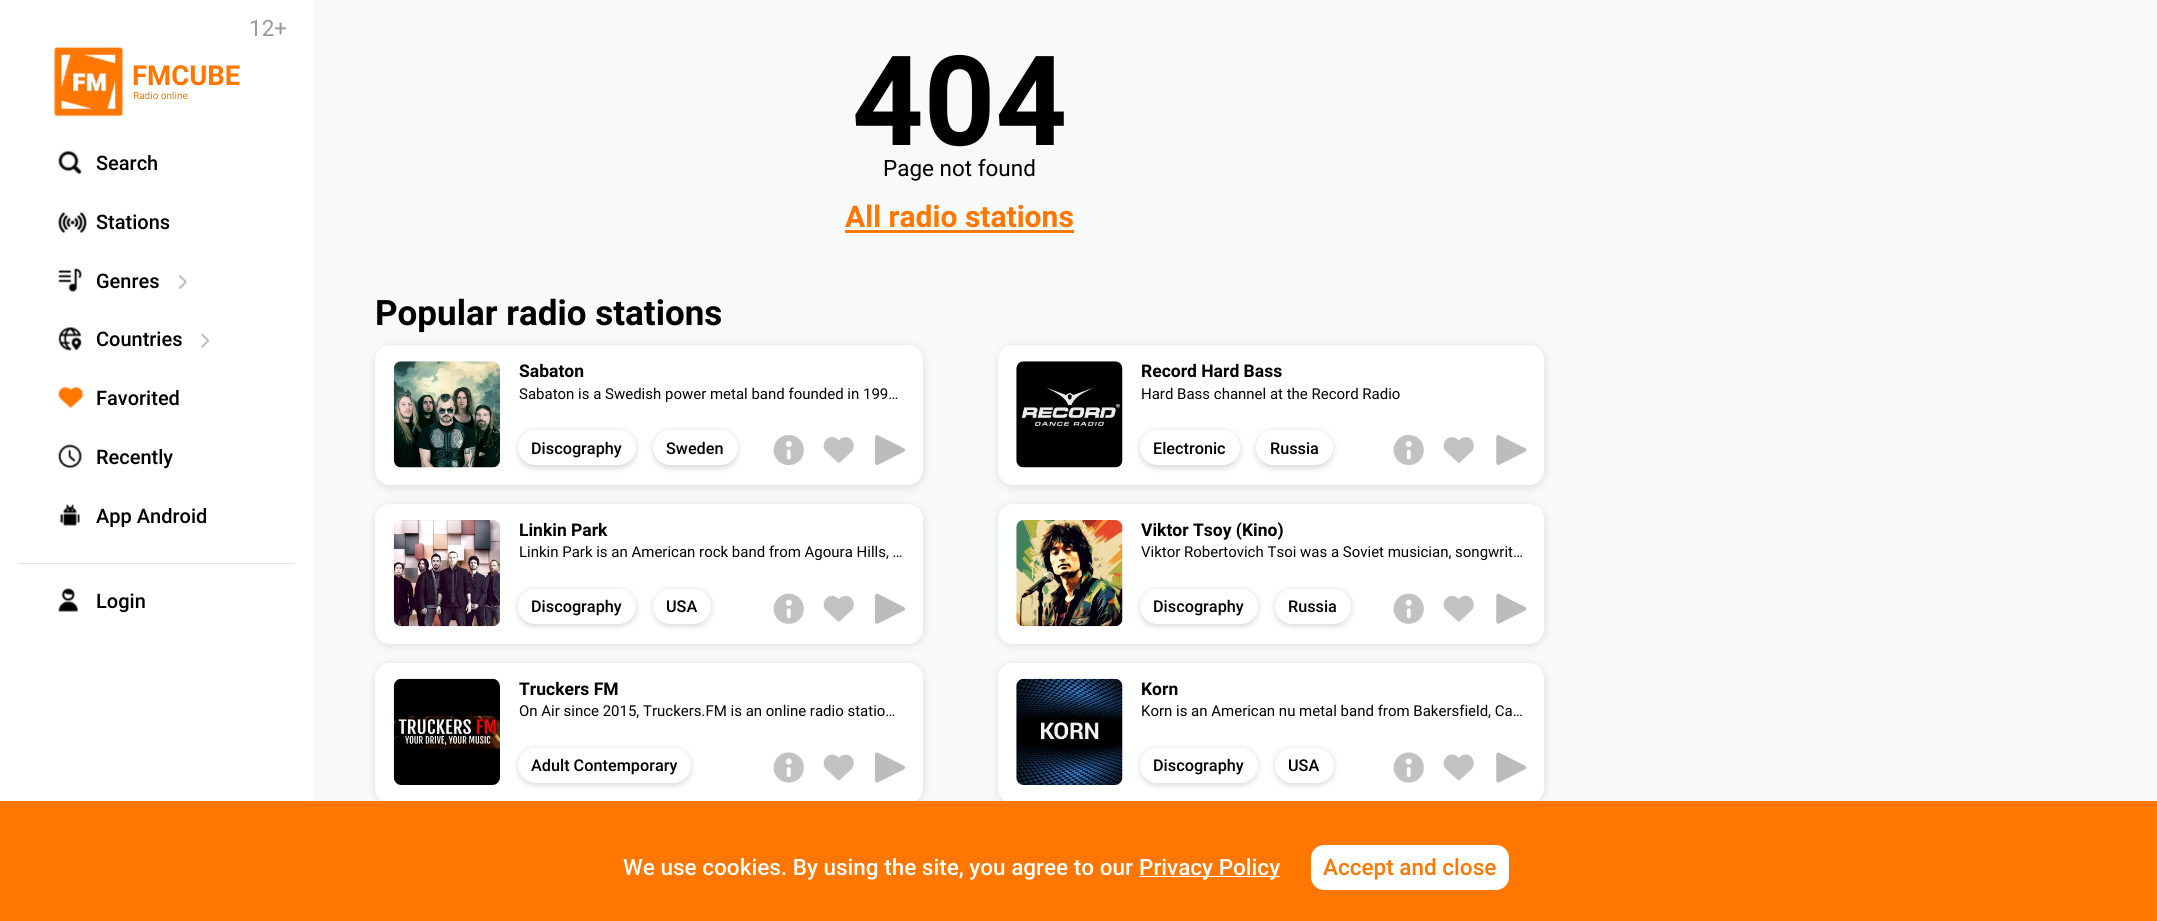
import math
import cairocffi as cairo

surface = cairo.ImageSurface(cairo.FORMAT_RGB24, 2157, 921)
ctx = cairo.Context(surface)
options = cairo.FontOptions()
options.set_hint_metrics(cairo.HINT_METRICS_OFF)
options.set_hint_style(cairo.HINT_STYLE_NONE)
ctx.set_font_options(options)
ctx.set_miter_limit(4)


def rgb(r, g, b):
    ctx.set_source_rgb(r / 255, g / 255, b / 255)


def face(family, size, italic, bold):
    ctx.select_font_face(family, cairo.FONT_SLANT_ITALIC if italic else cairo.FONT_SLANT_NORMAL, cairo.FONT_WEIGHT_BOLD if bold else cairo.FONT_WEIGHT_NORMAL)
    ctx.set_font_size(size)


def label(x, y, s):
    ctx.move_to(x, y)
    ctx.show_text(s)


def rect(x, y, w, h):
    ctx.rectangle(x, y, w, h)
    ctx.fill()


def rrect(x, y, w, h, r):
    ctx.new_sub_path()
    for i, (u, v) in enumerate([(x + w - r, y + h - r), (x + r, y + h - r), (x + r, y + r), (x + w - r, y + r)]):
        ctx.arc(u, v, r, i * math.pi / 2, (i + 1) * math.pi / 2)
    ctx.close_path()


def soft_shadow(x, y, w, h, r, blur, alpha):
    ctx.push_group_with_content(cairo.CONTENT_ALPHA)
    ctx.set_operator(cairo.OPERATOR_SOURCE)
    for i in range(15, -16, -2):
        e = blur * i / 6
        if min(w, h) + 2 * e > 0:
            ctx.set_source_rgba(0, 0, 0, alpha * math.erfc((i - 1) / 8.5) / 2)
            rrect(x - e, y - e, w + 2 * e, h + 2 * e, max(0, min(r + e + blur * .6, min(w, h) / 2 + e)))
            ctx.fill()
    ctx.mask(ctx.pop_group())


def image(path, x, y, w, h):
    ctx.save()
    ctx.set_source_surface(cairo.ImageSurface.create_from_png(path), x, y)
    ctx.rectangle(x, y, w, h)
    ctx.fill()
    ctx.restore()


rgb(248, 249, 249)
ctx.paint()
rgb(255, 255, 255)
rect(0, 0, 313, 801)
face('Roboto', 22.5, 0, 0)
rgb(153, 153, 153)
label(249, 36, '12+')
image('image0.png', 54, 46, 70, 70)
face('Roboto', 27.5, 0, 1)
rgb(255, 118, 0)
label(132, 85, 'FMCUBE')
face('Roboto', 10, 0, 0)
label(133, 99, 'Radio online')
image('image1.png', 58, 150, 24, 24)
face('Roboto Medium', 20, 0, 0)
rgb(0, 0, 0)
label(96, 170, 'Search')
image('image2.png', 58, 211, 29, 22)
label(96, 229, 'Stations')
image('image3.png', 58, 268, 24, 24)
label(96, 288, 'Genres')
image('image4.png', 178, 274, 9, 15)
image('image5.png', 58, 327, 24, 24)
label(96, 346, 'Countries')
image('image6.png', 200, 333, 9, 15)
image('image7.png', 58, 386, 25, 23)
label(96, 405, 'Favorited')
image('image8.png', 58, 444, 24, 24)
label(96, 464, 'Recently')
image('image9.png', 59, 504, 21, 22)
label(96, 523, 'App Android')
rgb(227, 227, 227)
rect(19, 563, 275, 1)
image('image10.png', 58, 588, 20, 24)
rgb(0, 0, 0)
label(96, 608, 'Login')
face('Roboto', 125, 0, 1)
label(852, 145, '404')
face('Roboto', 22.5, 0, 0)
label(883, 176, 'Page not found')
face('Roboto', 30, 0, 1)
rgb(255, 118, 0)
label(845, 227, 'All radio stations')
rect(845, 230, 229, 3)
face('Roboto', 35, 0, 1)
rgb(0, 0, 0)
label(375, 325, 'Popular radio stations')
rgb(110, 110, 110)
soft_shadow(375, 346, 549, 142, 16, 4, 0.19)
rgb(255, 255, 255)
rrect(375, 345, 548, 140, 15)
ctx.fill()
image('image11.png', 393, 361, 107, 107)
face('Roboto', 17.5, 0, 1)
rgb(0, 0, 0)
label(519, 377, 'Sabaton')
face('Roboto', 15, 0, 0)
label(519, 399, 'Sabaton is a Swedish power metal band founded in 199…')
rgb(110, 110, 110)
soft_shadow(518, 431, 118, 37, 18.5, 3, 0.28)
rgb(255, 255, 255)
rrect(518.5, 430.5, 117, 34, 17)
ctx.fill_preserve()
ctx.set_line_width(1)
ctx.stroke()
face('Roboto Medium', 16.25, 0, 0)
rgb(0, 0, 0)
label(531, 454, 'Discography')
rgb(110, 110, 110)
soft_shadow(653, 431, 85, 37, 18.5, 3, 0.28)
rgb(255, 255, 255)
rrect(653.5, 430.5, 84, 34, 17)
ctx.fill_preserve()
ctx.stroke()
rgb(0, 0, 0)
label(666, 454, 'Sweden')
image('image12.png', 773, 435, 31, 30)
image('image13.png', 823, 437, 31, 27)
image('image14.png', 875, 435, 30, 30)
rgb(110, 110, 110)
soft_shadow(998, 346, 547, 142, 16, 4, 0.19)
rgb(255, 255, 255)
rrect(998, 345, 546, 140, 15)
ctx.fill()
image('image15.png', 1016, 361, 107, 107)
face('Roboto', 17.5, 0, 1)
rgb(0, 0, 0)
label(1141, 377, 'Record Hard Bass')
face('Roboto', 15, 0, 0)
label(1141, 399, 'Hard Bass channel at the Record Radio')
rgb(110, 110, 110)
soft_shadow(1140, 431, 100, 37, 18.5, 3, 0.28)
rgb(255, 255, 255)
rrect(1140.5, 430.5, 99, 34, 17)
ctx.fill_preserve()
ctx.stroke()
face('Roboto Medium', 16.25, 0, 0)
rgb(0, 0, 0)
label(1153, 454, 'Electronic')
rgb(110, 110, 110)
soft_shadow(1256, 431, 77, 37, 18.5, 3, 0.28)
rgb(255, 255, 255)
rrect(1256.5, 430.5, 76, 34, 17)
ctx.fill_preserve()
ctx.stroke()
rgb(0, 0, 0)
label(1270, 454, 'Russia')
image('image12.png', 1393, 435, 31, 30)
image('image13.png', 1443, 437, 31, 27)
image('image16.png', 1496, 435, 31, 30)
rgb(110, 110, 110)
soft_shadow(375, 505, 549, 141, 16, 4, 0.19)
rgb(255, 255, 255)
rrect(375, 504, 548, 140, 15)
ctx.fill()
image('image17.png', 393, 520, 107, 107)
face('Roboto', 17.5, 0, 1)
rgb(0, 0, 0)
label(519, 536, 'Linkin Park')
face('Roboto', 15, 0, 0)
label(519, 557, 'Linkin Park is an American rock band from Agoura Hills, …')
rgb(110, 110, 110)
soft_shadow(518, 590, 118, 36, 18, 3, 0.28)
rgb(255, 255, 255)
rrect(518.5, 589.5, 117, 34, 17)
ctx.fill_preserve()
ctx.stroke()
face('Roboto Medium', 16.25, 0, 0)
rgb(0, 0, 0)
label(531, 612, 'Discography')
rgb(110, 110, 110)
soft_shadow(653, 590, 58, 36, 18, 3, 0.28)
rgb(255, 255, 255)
rrect(653.5, 589.5, 57, 34, 17)
ctx.fill_preserve()
ctx.stroke()
rgb(0, 0, 0)
label(666, 612, 'USA')
image('image18.png', 773, 593, 31, 31)
image('image19.png', 823, 595, 31, 27)
image('image20.png', 875, 593, 30, 31)
rgb(110, 110, 110)
soft_shadow(998, 505, 547, 141, 16, 4, 0.19)
rgb(255, 255, 255)
rrect(998, 504, 546, 140, 15)
ctx.fill()
image('image21.png', 1016, 520, 107, 107)
face('Roboto', 17.5, 0, 1)
rgb(0, 0, 0)
label(1141, 536, 'Viktor Tsoy (Kino)')
face('Roboto', 15, 0, 0)
label(1141, 557, 'Viktor Robertovich Tsoi was a Soviet musician, songwrit…')
rgb(110, 110, 110)
soft_shadow(1140, 590, 118, 36, 18, 3, 0.28)
rgb(255, 255, 255)
rrect(1140.5, 589.5, 117, 34, 17)
ctx.fill_preserve()
ctx.stroke()
face('Roboto Medium', 16.25, 0, 0)
rgb(0, 0, 0)
label(1153, 612, 'Discography')
rgb(110, 110, 110)
soft_shadow(1275, 590, 76, 36, 18, 3, 0.28)
rgb(255, 255, 255)
rrect(1275.5, 589.5, 75, 34, 17)
ctx.fill_preserve()
ctx.stroke()
rgb(0, 0, 0)
label(1288, 612, 'Russia')
image('image18.png', 1393, 593, 31, 31)
image('image19.png', 1443, 595, 31, 27)
image('image22.png', 1496, 593, 31, 31)
rgb(110, 110, 110)
soft_shadow(375, 664, 549, 141, 16, 4, 0.19)
rgb(255, 255, 255)
rrect(375, 663, 548, 140, 15)
ctx.fill()
image('image23.png', 393, 678, 107, 107)
face('Roboto', 17.5, 0, 1)
rgb(0, 0, 0)
label(519, 695, 'Truckers FM')
face('Roboto', 15, 0, 0)
label(519, 716, 'On Air since 2015, Truckers.FM is an online radio statio…')
rgb(110, 110, 110)
soft_shadow(518, 749, 173, 36, 18, 3, 0.28)
rgb(255, 255, 255)
rrect(518.5, 748.5, 172, 34, 17)
ctx.fill_preserve()
ctx.stroke()
face('Roboto Medium', 16.25, 0, 0)
rgb(0, 0, 0)
label(531, 771, 'Adult Contemporary')
image('image24.png', 773, 752, 31, 31)
image('image25.png', 823, 754, 31, 27)
image('image26.png', 875, 752, 30, 31)
rgb(110, 110, 110)
soft_shadow(998, 664, 547, 141, 16, 4, 0.19)
rgb(255, 255, 255)
rrect(998, 663, 546, 140, 15)
ctx.fill()
image('image27.png', 1016, 678, 107, 107)
face('Roboto', 17.5, 0, 1)
rgb(0, 0, 0)
label(1141, 695, 'Korn')
face('Roboto', 15, 0, 0)
label(1141, 716, 'Korn is an American nu metal band from Bakersfield, Ca…')
rgb(110, 110, 110)
soft_shadow(1140, 749, 118, 36, 18, 3, 0.28)
rgb(255, 255, 255)
rrect(1140.5, 748.5, 117, 34, 17)
ctx.fill_preserve()
ctx.stroke()
face('Roboto Medium', 16.25, 0, 0)
rgb(0, 0, 0)
label(1153, 771, 'Discography')
rgb(110, 110, 110)
soft_shadow(1275, 749, 59, 36, 18, 3, 0.28)
rgb(255, 255, 255)
rrect(1275.5, 748.5, 58, 34, 17)
ctx.fill_preserve()
ctx.stroke()
rgb(0, 0, 0)
label(1288, 771, 'USA')
image('image24.png', 1393, 752, 31, 31)
image('image25.png', 1443, 754, 31, 27)
image('image28.png', 1496, 752, 31, 31)
rgb(255, 118, 0)
rect(0, 801, 2157, 120)
face('Roboto Medium', 22.5, 0, 0)
rgb(255, 255, 255)
label(623, 875, 'We use cookies. By using the site, you agree to our')
rect(1139, 876, 141, 1)
label(1139, 875, 'Privacy Policy')
rrect(1311, 845, 198, 45, 13)
ctx.fill()
rgb(255, 118, 0)
label(1323, 875, 'Accept and close')
surface.write_to_png('render.png')
